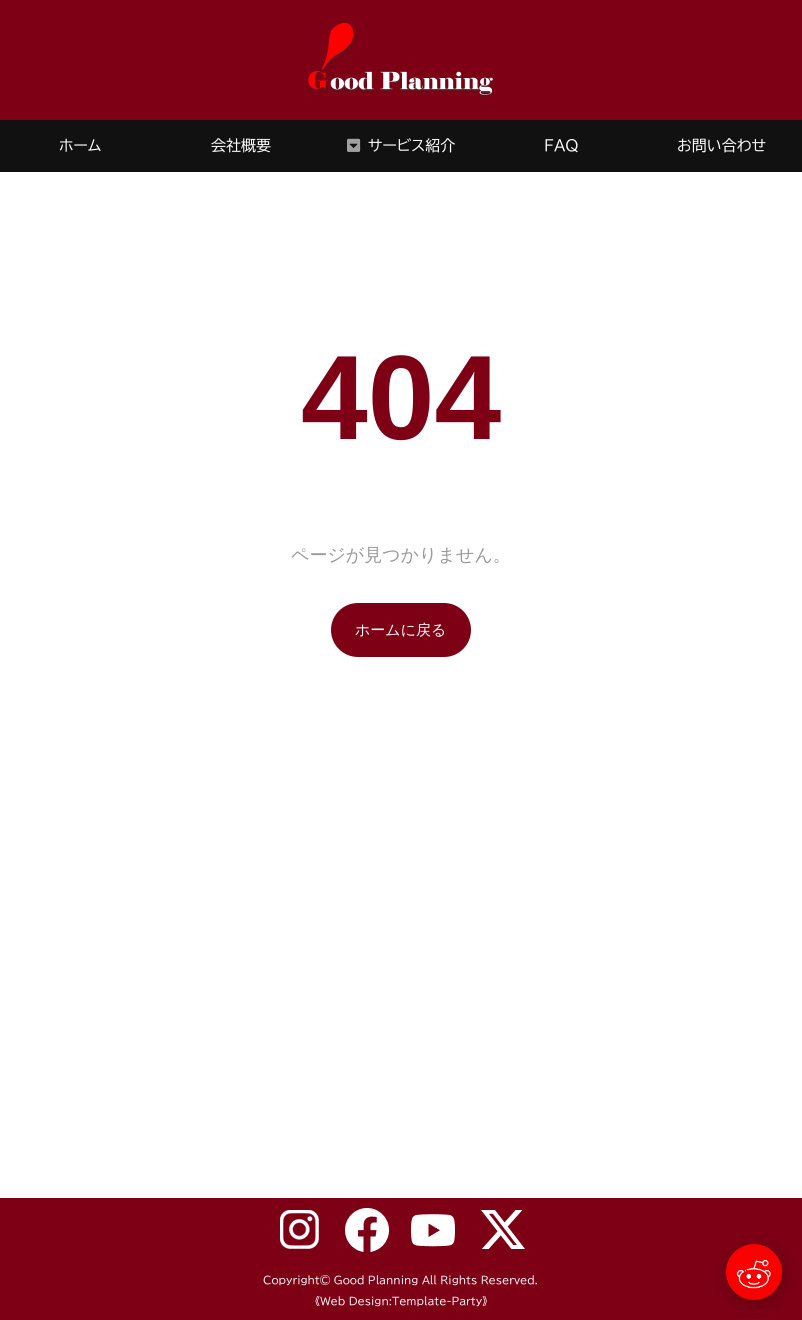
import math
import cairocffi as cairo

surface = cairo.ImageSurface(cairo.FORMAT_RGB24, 802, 1320)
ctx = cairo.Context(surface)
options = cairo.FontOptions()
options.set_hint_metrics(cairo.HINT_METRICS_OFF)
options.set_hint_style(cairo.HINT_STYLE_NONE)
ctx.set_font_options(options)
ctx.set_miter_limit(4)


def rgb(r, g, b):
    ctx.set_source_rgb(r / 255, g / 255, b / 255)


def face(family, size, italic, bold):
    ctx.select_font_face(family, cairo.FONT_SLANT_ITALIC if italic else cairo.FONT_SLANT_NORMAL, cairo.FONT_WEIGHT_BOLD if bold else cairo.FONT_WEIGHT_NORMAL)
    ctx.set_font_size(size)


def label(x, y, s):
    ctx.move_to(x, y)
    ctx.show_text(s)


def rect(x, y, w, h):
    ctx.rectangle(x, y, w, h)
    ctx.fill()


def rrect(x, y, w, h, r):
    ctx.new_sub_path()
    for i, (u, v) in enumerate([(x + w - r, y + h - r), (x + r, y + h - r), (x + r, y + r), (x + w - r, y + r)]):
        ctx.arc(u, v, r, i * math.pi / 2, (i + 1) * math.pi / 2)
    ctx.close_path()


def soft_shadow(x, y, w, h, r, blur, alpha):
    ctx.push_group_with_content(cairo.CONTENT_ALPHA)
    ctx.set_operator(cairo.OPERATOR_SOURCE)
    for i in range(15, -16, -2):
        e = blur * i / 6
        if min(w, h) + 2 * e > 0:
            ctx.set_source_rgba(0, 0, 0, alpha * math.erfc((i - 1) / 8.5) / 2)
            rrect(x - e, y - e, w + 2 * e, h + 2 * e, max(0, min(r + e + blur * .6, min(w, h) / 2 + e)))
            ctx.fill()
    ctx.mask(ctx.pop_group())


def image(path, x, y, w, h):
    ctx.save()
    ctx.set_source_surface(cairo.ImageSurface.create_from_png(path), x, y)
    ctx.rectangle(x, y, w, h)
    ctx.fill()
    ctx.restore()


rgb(255, 255, 255)
ctx.paint()
rgb(125, 0, 21)
rect(0, 0, 802, 120)
image('image0.png', 308, 22, 186, 76)
rgb(17, 17, 17)
rect(0, 120, 321, 52)
face('BIZ UDPGothic', 15, 0, 0)
rgb(255, 255, 255)
label(59, 151, 'ホーム')
label(211, 151, '会社概要')
rgb(17, 17, 17)
rect(321, 120, 481, 52)
image('image1.png', 347, 138, 14, 14)
rgb(255, 255, 255)
label(368, 151, 'サービス紹介')
label(544, 151, 'FAQ')
label(677, 151, 'お問い合わせ')
face('Liberation Sans', 120, 0, 1)
rgb(125, 0, 21)
label(301, 439, '404')
face('WenQuanYi Zen Hei Medium', 18, 0, 0)
rgb(153, 153, 153)
label(291, 561, 'ページが見つかりません。')
rgb(125, 0, 21)
rrect(331, 603, 140, 54, 27)
ctx.fill()
face('WenQuanYi Zen Hei Medium', 15, 0, 0)
rgb(255, 255, 255)
label(355, 635, 'ホームに戻る')
rgb(125, 0, 21)
rect(0, 1198, 802, 122)
image('image2.png', 280, 1210, 39, 39)
image('image3.png', 345, 1208, 44, 44)
image('image4.png', 411, 1214, 44, 33)
image('image5.png', 481, 1210, 44, 39)
face('BIZ UDPGothic', 10.5, 0, 0)
rgb(255, 255, 255)
label(263, 1284, 'Copyright© Good Planning All Rights Reserved.')
label(315, 1305, '《Web Design:Template-Party》')
rgb(0, 0, 0)
soft_shadow(727, 1248, 56, 56, 28, 7.5, 0.24)
rgb(250, 0, 0)
ctx.arc(754, 1272, 28, 0, 2 * math.pi)
ctx.fill()
image('image6.png', 736, 1259, 35, 30)
surface.write_to_png('render.png')
